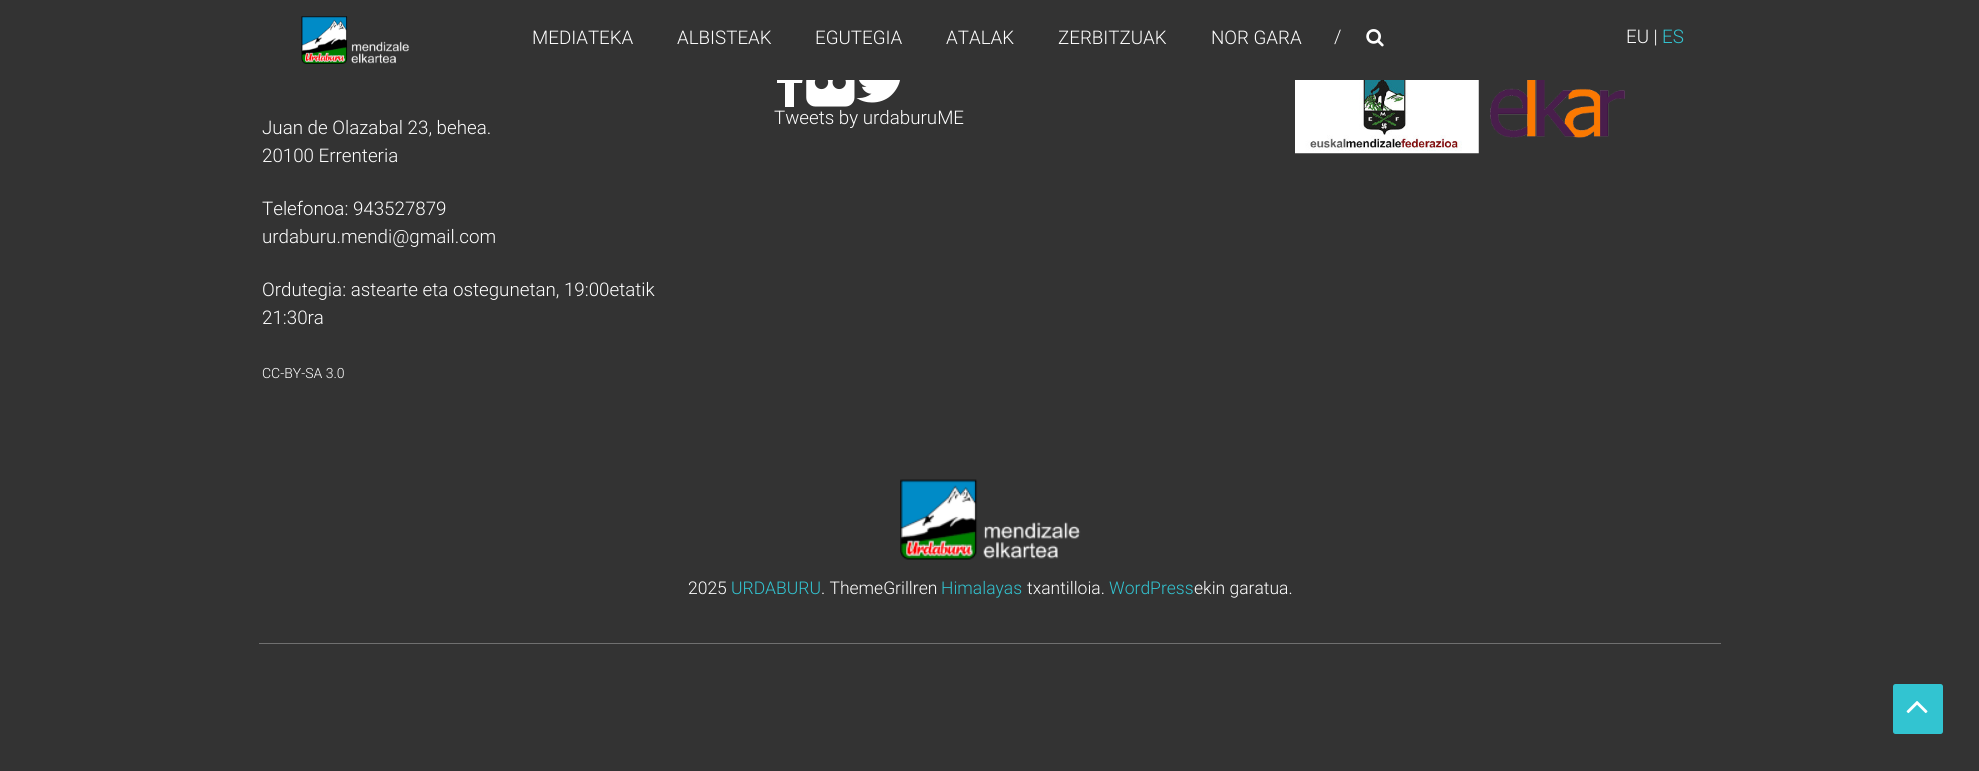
import math
import cairocffi as cairo

surface = cairo.ImageSurface(cairo.FORMAT_RGB24, 1979, 771)
ctx = cairo.Context(surface)
options = cairo.FontOptions()
options.set_hint_metrics(cairo.HINT_METRICS_OFF)
options.set_hint_style(cairo.HINT_STYLE_NONE)
ctx.set_font_options(options)
ctx.set_miter_limit(4)


def rgb(r, g, b):
    ctx.set_source_rgb(r / 255, g / 255, b / 255)


def face(family, size, italic, bold):
    ctx.select_font_face(family, cairo.FONT_SLANT_ITALIC if italic else cairo.FONT_SLANT_NORMAL, cairo.FONT_WEIGHT_BOLD if bold else cairo.FONT_WEIGHT_NORMAL)
    ctx.set_font_size(size)


def label(x, y, s):
    ctx.move_to(x, y)
    ctx.show_text(s)


def rect(x, y, w, h):
    ctx.rectangle(x, y, w, h)
    ctx.fill()


def rrect(x, y, w, h, r):
    ctx.new_sub_path()
    for i, (u, v) in enumerate([(x + w - r, y + h - r), (x + r, y + h - r), (x + r, y + r), (x + w - r, y + r)]):
        ctx.arc(u, v, r, i * math.pi / 2, (i + 1) * math.pi / 2)
    ctx.close_path()


def image(path, x, y, w, h):
    ctx.save()
    ctx.set_source_surface(cairo.ImageSurface.create_from_png(path), x, y)
    ctx.rectangle(x, y, w, h)
    ctx.fill()
    ctx.restore()


rgb(51, 51, 51)
ctx.paint()
rgb(255, 255, 255)
ctx.new_path()
ctx.move_to(804, 55)
ctx.line_to(804, 63)
ctx.curve_to(794, 63, 794, 63, 794, 73)
ctx.line_to(804, 73)
ctx.line_to(802, 83)
ctx.line_to(794, 83)
ctx.line_to(794, 107)
ctx.line_to(785, 107)
ctx.line_to(785, 83)
ctx.line_to(777, 83)
ctx.line_to(777, 73)
ctx.line_to(785, 73)
ctx.line_to(785, 64)
ctx.curve_to(786, 54, 796, 54, 804, 55)
ctx.close_path()
ctx.fill()
rgb(51, 51, 51)
rect(777, 54, 27, 26)
image('image0.png', 301, 16, 109, 48)
face('Roboto Light', 18.75, 0, 0)
rgb(255, 255, 255)
label(532, 44, 'MEDIATEKA')
label(677, 44, 'ALBISTEAK')
label(815, 44, 'EGUTEGIA')
label(946, 44, 'ATALAK')
label(1058, 44, 'ZERBITZUAK')
label(1211, 44, 'NOR GARA')
label(1334, 43, '/')
image('image1.png', 1366, 29, 18, 18)
label(1626, 43, 'EU |')
rgb(50, 196, 209)
label(1662, 43, 'ES')
rgb(255, 255, 255)
label(262, 134, 'Juan de Olazabal 23, behea.')
label(262, 162, '20100 Errenteria')
label(262, 215, 'Telefonoa: 943527879')
label(262, 243, 'urdaburu.mendi@gmail.com')
label(262, 296, 'Ordutegia: astearte eta ostegunetan, 19:00etatik')
label(262, 324, '21:30ra')
face('Roboto Light', 14, 0, 0)
label(262, 378, 'CC-BY-SA 3.0')
image('image2.png', 806, 80, 49, 27)
image('image3.png', 856, 80, 44, 23)
face('Roboto Light', 18.75, 0, 0)
label(774, 124, 'Tweets by urdaburuME')
image('image4.png', 1295, 80, 184, 74)
image('image5.png', 1490, 80, 135, 58)
image('image6.png', 900, 479, 181, 81)
rgb(112, 112, 112)
rect(259, 643, 1462, 1)
face('Roboto Light', 17.5, 0, 0)
rgb(255, 255, 255)
label(688, 594, '2025')
rgb(50, 196, 209)
label(731, 594, 'URDABURU')
rgb(255, 255, 255)
label(821, 594, '. ThemeGrillren')
rgb(50, 196, 209)
label(941, 594, 'Himalayas')
rgb(255, 255, 255)
label(1027, 594, 'txantilloia.')
rgb(50, 196, 209)
label(1109, 594, 'WordPress')
rgb(255, 255, 255)
label(1194, 594, 'ekin garatua.')
rgb(50, 196, 209)
rrect(1893, 684, 50, 50, 2.5)
ctx.fill()
image('image7.png', 1906, 701, 22, 13)
surface.write_to_png('render.png')
